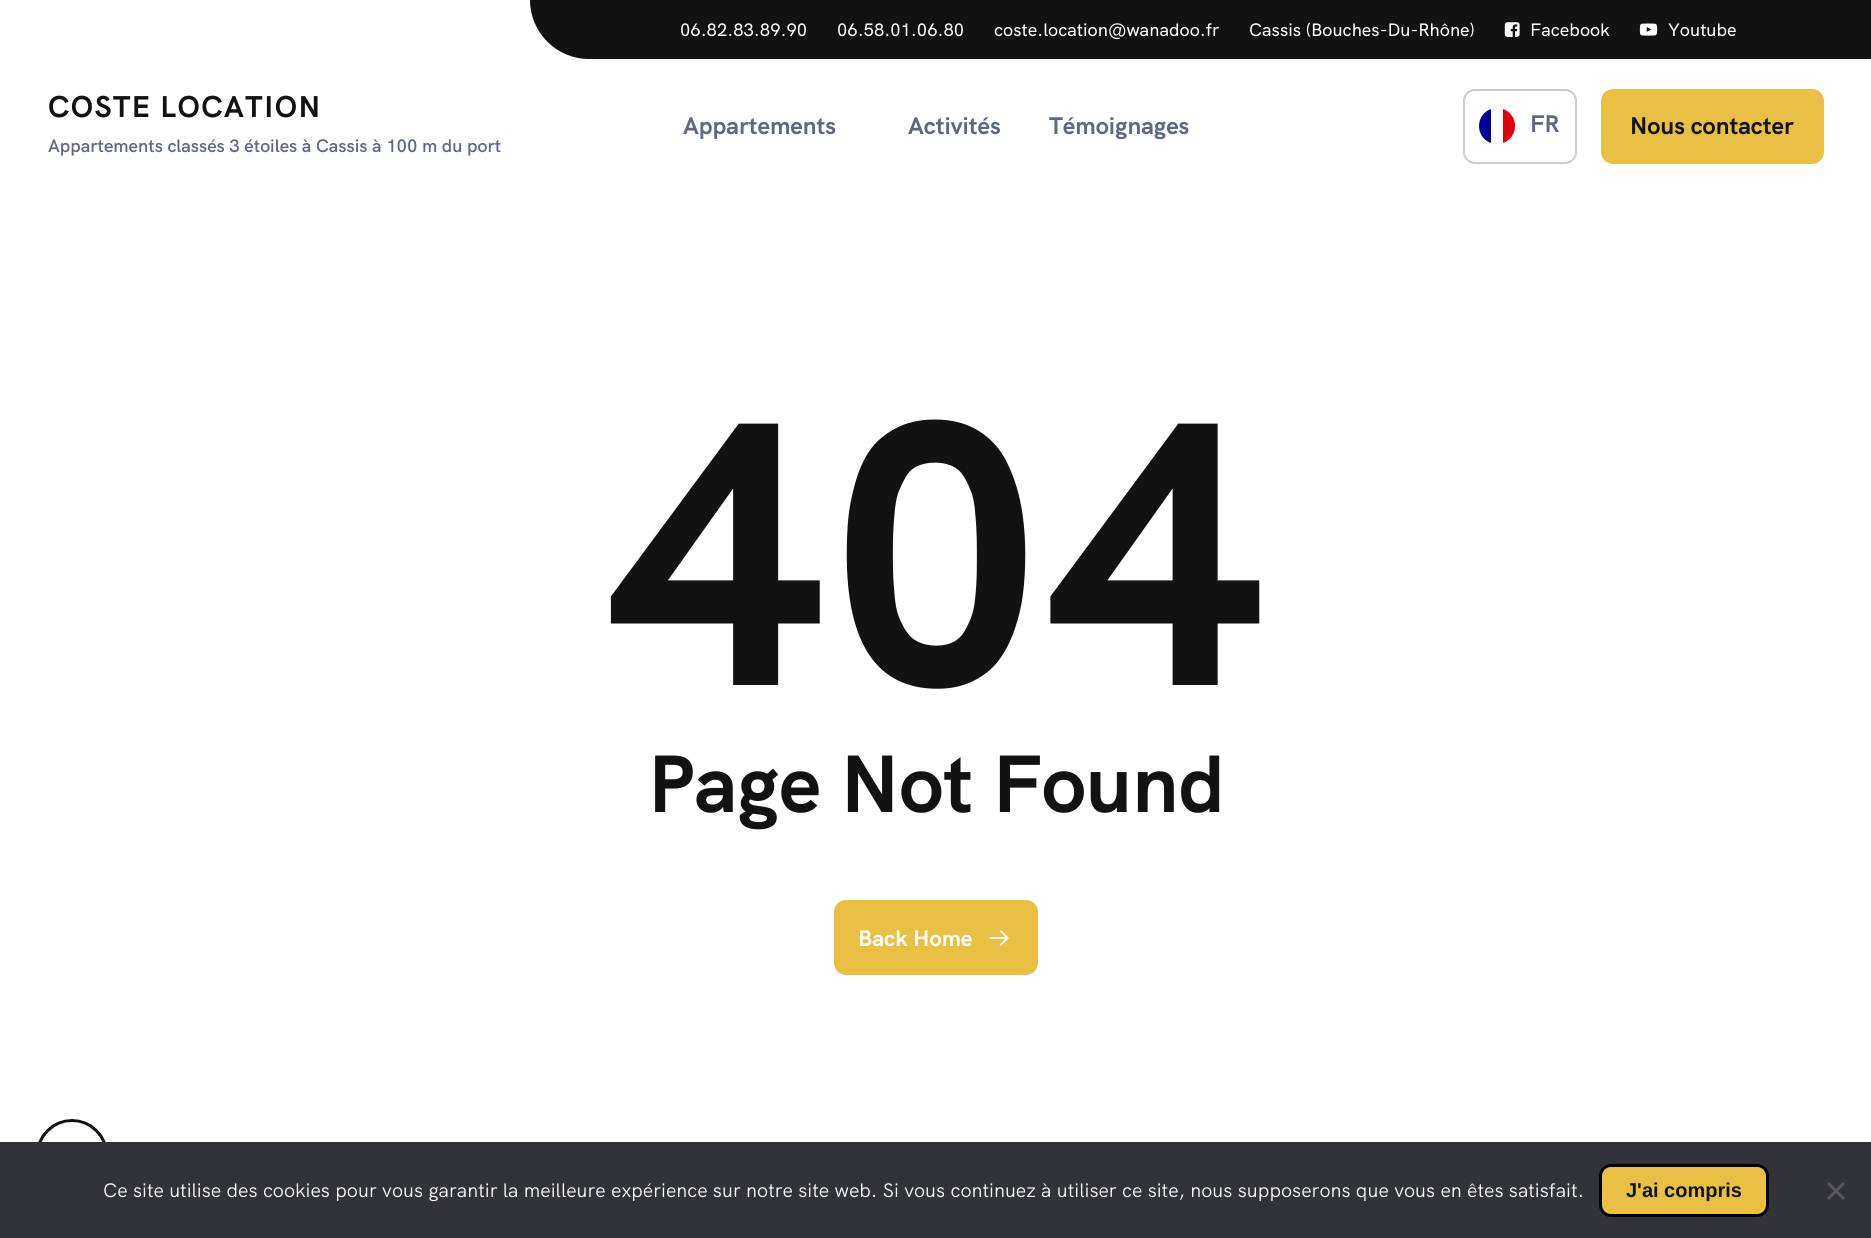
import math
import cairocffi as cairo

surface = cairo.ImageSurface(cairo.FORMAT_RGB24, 1871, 1238)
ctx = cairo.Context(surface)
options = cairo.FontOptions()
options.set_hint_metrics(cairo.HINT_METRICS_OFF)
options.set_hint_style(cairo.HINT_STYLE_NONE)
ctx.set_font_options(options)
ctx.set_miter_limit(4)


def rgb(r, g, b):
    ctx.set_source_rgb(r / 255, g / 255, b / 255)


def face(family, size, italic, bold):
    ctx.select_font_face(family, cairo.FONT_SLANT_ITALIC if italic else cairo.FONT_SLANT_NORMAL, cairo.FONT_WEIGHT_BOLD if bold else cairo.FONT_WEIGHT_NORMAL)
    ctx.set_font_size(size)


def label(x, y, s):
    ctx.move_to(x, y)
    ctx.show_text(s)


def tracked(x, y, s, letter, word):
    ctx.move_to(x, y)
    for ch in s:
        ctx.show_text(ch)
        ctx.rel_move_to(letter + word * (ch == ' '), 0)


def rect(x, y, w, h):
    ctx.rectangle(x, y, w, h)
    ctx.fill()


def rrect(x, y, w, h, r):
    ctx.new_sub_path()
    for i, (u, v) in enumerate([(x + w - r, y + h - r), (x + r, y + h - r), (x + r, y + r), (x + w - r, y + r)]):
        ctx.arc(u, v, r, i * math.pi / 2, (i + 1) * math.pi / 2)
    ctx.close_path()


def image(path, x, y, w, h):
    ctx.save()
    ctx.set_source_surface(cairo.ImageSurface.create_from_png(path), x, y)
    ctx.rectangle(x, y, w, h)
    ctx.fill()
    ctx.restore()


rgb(255, 255, 255)
ctx.paint()
rgb(19, 18, 19)
ctx.new_path()
ctx.move_to(530, 0)
ctx.line_to(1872, 0)
ctx.line_to(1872, 59)
ctx.line_to(589, 59)
ctx.curve_to(556.5, 59, 530, 32.5, 530, 0)
ctx.close_path()
ctx.fill()
face('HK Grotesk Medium', 18, 0, 0)
rgb(255, 255, 255)
label(680, 36, '06.82.83.89.90')
label(837, 36, '06.58.01.06.80')
label(994, 36, 'coste.location@wanadoo.fr')
label(1249, 36, 'Cassis (Bouches-Du-Rhône)')
image('image0.png', 1504, 22, 16, 15)
label(1530, 36, 'Facebook')
image('image1.png', 1639, 23, 19, 13)
label(1668, 36, 'Youtube')
face('HK Grotesk', 30, 0, 1)
rgb(19, 18, 19)
tracked(48, 117, 'COSTE LOCATION', 1.5, 0)
face('HK Grotesk SemiBold', 18, 0, 0)
rgb(94, 104, 129)
label(48, 152, 'Appartements classés 3 étoiles à Cassis à 100 m du port')
face('HK Grotesk', 24, 0, 1)
label(683, 134, 'Appartements')
label(908, 134, 'Activités')
label(1049, 134, 'Témoignages')
rrect(1464, 90, 112, 73, 11)
rgb(200, 204, 211)
ctx.stroke()
rgb(0, 0, 145)
ctx.new_path()
ctx.move_to(1491, 143)
ctx.curve_to(1475, 137.5, 1475, 114.5, 1491, 109)
ctx.close_path()
ctx.fill()
rgb(225, 0, 15)
ctx.new_path()
ctx.move_to(1503, 109)
ctx.curve_to(1519, 114.5, 1519, 137.5, 1503, 143)
ctx.close_path()
ctx.fill()
rgb(94, 104, 129)
label(1530, 132, 'FR')
rgb(233, 192, 67)
rrect(1601, 89, 223, 75, 12)
ctx.fill()
rgb(19, 18, 19)
label(1630, 134, 'Nous contacter')
face('HK Grotesk', 375, 0, 1)
label(606, 685, '404')
face('HK Grotesk', 81, 0, 1)
label(648, 812, 'Page Not Found')
rgb(233, 192, 67)
rrect(834, 900, 204, 75, 12)
ctx.fill()
face('HK Grotesk', 22.5, 0, 1)
rgb(255, 255, 255)
label(858, 946, 'Back Home')
image('image2.png', 989, 930, 20, 16)
image('image3.png', 38, 1119, 68, 23)
rgb(50, 50, 58)
rect(0, 1142, 1871, 96)
face('HK Grotesk', 19.5, 0, 0)
rgb(255, 255, 255)
label(103, 1197, 'Ce site utilise des cookies pour vous garantir la meilleure expérience sur notre site web. Si vous continuez à utiliser ce site, nous supposerons que vous en êtes satisfait.')
rgb(233, 192, 67)
rrect(1600.5, 1165.5, 167, 50, 10.5)
ctx.fill_preserve()
rgb(0, 0, 0)
ctx.set_line_width(3)
ctx.stroke()
face('Liberation Sans', 20, 0, 1)
rgb(19, 18, 19)
label(1626, 1197, 'J\'ai compris')
rgb(89, 89, 93)
ctx.new_path()
ctx.move_to(1843, 1182)
ctx.line_to(1845, 1184)
ctx.line_to(1829, 1200)
ctx.line_to(1827, 1198)
ctx.close_path()
ctx.fill()
ctx.new_path()
ctx.move_to(1827, 1184)
ctx.line_to(1829, 1182)
ctx.line_to(1845, 1198)
ctx.line_to(1843, 1200)
ctx.close_path()
ctx.fill()
surface.write_to_png('render.png')
